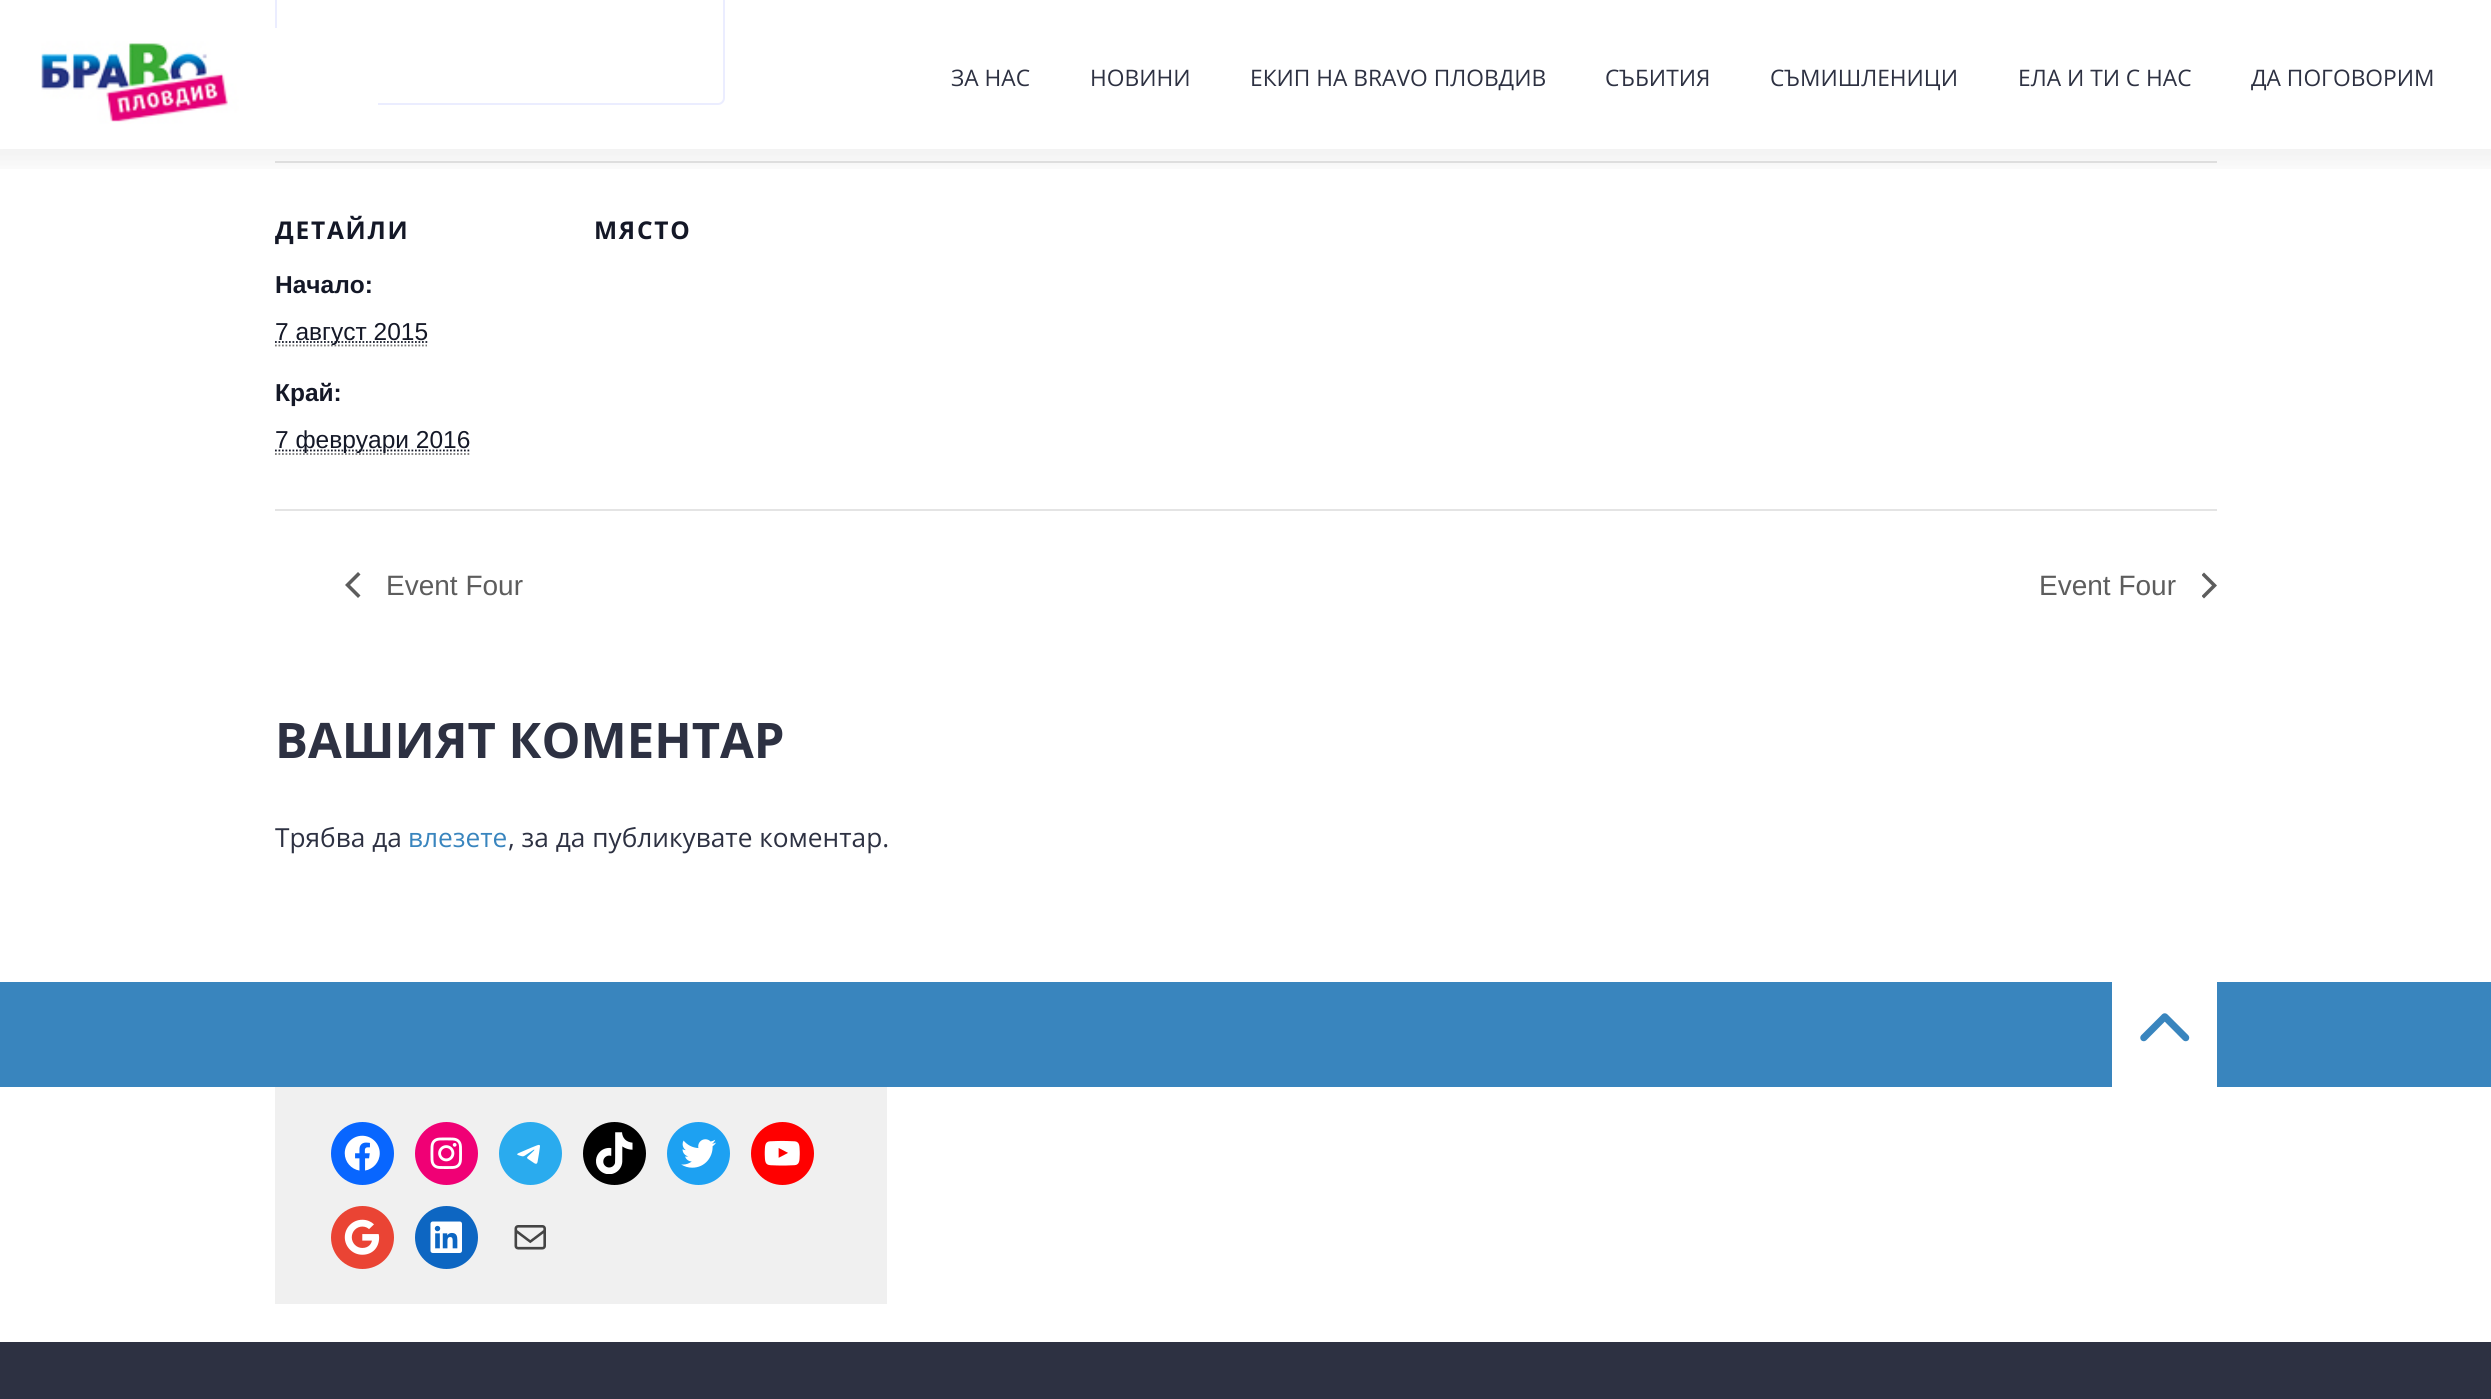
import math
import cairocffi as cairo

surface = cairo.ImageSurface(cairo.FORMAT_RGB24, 2491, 1399)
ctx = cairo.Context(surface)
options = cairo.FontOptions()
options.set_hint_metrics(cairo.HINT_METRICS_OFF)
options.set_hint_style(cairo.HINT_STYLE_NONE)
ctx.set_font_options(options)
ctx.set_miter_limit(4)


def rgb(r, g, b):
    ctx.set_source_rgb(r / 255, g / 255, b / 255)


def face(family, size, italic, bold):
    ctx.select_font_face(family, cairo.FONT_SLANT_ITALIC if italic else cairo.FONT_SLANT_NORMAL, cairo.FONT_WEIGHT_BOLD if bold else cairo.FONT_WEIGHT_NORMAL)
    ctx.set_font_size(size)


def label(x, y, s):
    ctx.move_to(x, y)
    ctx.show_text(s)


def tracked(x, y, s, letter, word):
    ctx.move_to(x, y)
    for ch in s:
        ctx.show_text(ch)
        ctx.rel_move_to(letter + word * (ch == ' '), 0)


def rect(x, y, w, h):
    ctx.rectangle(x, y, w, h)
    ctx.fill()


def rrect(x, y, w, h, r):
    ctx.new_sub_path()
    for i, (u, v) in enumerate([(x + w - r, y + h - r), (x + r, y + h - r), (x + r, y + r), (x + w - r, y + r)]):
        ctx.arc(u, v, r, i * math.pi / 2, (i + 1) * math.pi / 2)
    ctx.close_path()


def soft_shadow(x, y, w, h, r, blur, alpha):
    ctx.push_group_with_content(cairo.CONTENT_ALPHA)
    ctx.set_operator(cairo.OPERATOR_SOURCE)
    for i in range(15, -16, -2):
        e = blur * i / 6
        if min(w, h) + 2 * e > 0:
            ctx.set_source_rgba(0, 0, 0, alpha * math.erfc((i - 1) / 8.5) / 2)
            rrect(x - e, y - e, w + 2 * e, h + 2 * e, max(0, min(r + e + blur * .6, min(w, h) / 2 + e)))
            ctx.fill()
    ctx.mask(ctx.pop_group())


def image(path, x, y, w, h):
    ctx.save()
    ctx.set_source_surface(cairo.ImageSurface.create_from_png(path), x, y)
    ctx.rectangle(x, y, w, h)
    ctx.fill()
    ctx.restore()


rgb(255, 255, 255)
ctx.paint()
rrect(276, -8, 448, 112, 6)
rgb(51, 74, 255)
ctx.stroke()
rgb(228, 228, 228)
rect(275, 161, 1942, 2)
ctx.save()
ctx.rectangle(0, 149, 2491, 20)
ctx.clip()
rgb(0, 0, 0)
soft_shadow(-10, -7, 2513, 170, 0, 15, 0.06)
ctx.restore()
ctx.set_source_rgba(1, 1, 1, 0.9)
rect(7, 0, 2479, 149)
image('image0.png', 41, 28, 337, 96)
face('Open Sans', 22.75, 0, 0)
rgb(45, 49, 66)
label(951, 86, 'ЗА НАС')
label(1090, 86, 'НОВИНИ')
label(1250, 86, 'ЕКИП НА BRAVO ПЛОВДИВ')
label(1605, 86, 'СЪБИТИЯ')
label(1770, 86, 'СЪМИШЛЕНИЦИ')
label(2018, 86, 'ЕЛА И ТИ С НАС')
label(2251, 86, 'ДА ПОГОВОРИМ')
ctx.save()
ctx.rectangle(275, 0, 1942, 509)
ctx.clip()
face('Open Sans', 24.5, 0, 1)
rgb(20, 24, 39)
tracked(275, 239, 'ДЕТАЙЛИ', 1.75, 0)
ctx.restore()
face('Liberation Sans', 24.5, 0, 1)
rgb(20, 24, 39)
label(275, 293, 'Начало:')
ctx.new_path()
ctx.move_to(275, 345.5)
ctx.line_to(427, 345.5)
rgb(119, 119, 119)
ctx.set_line_width(1.8)
ctx.set_dash([1.75, 1.75])
ctx.stroke()
ctx.new_path()
ctx.move_to(275, 342)
ctx.line_to(428, 342)
rgb(20, 24, 39)
ctx.stroke()
face('Liberation Sans', 24.5, 0, 0)
label(275, 340, '7 август 2015')
face('Liberation Sans', 24.5, 0, 1)
label(275, 401, 'Край:')
ctx.new_path()
ctx.move_to(275, 454)
ctx.line_to(471, 454)
rgb(119, 119, 119)
ctx.stroke()
ctx.new_path()
ctx.move_to(275, 450.5)
ctx.line_to(470, 450.5)
rgb(20, 24, 39)
ctx.stroke()
face('Liberation Sans', 24.5, 0, 0)
label(275, 448, '7 февруари 2016')
face('Open Sans', 24.5, 0, 1)
tracked(594, 239, 'МЯСТО', 1.75, 0)
rgb(228, 228, 228)
rect(275, 509, 1942, 2)
rgb(93, 93, 93)
ctx.new_path()
ctx.move_to(360.5, 595.5)
ctx.line_to(358, 598)
ctx.line_to(345, 585)
ctx.line_to(358, 572)
ctx.line_to(360.5, 574.5)
ctx.line_to(350, 585)
ctx.close_path()
ctx.fill()
face('Liberation Sans', 28, 0, 0)
label(386, 595, 'Event Four')
label(2039, 595, 'Event Four')
ctx.save()
ctx.rectangle(2202, 572, 15, 27)
ctx.clip()
ctx.new_path()
ctx.move_to(2201.5, 575)
ctx.line_to(2204, 572.5)
ctx.line_to(2217, 585.5)
ctx.line_to(2204, 598.5)
ctx.line_to(2201.5, 596)
ctx.line_to(2212, 585.5)
ctx.close_path()
ctx.fill()
ctx.restore()
face('Open Sans', 49, 0, 1)
rgb(45, 49, 66)
label(275, 758, 'ВАШИЯТ КОМЕНТАР')
face('Open Sans', 26.25, 0, 0)
label(275, 847, 'Трябва да')
rgb(57, 133, 190)
label(408, 847, 'влезете')
rgb(45, 49, 66)
label(508, 847, ', за да публикувате коментар.')
rgb(57, 133, 190)
rect(0, 982, 2491, 105)
rgb(255, 255, 255)
rect(2112, 982, 105, 105)
image('image1.png', 2140, 1013, 50, 29)
rgb(240, 240, 240)
rect(275, 1087, 612, 217)
rgb(8, 102, 255)
ctx.arc(362.5, 1153.5, 31.5, 0, 2 * math.pi)
ctx.fill()
image('image2.png', 344, 1135, 36, 36)
rgb(240, 0, 117)
ctx.arc(446.5, 1153.5, 31.5, 0, 2 * math.pi)
ctx.fill()
image('image3.png', 430, 1137, 32, 32)
rgb(42, 171, 238)
ctx.arc(530.5, 1153.5, 31.5, 0, 2 * math.pi)
ctx.fill()
image('image4.png', 517, 1144, 23, 20)
rgb(0, 0, 0)
ctx.arc(614.5, 1153.5, 31.5, 0, 2 * math.pi)
ctx.fill()
image('image5.png', 596, 1132, 37, 42)
rgb(29, 161, 242)
ctx.arc(698.5, 1153.5, 31.5, 0, 2 * math.pi)
ctx.fill()
image('image6.png', 681, 1139, 35, 29)
rgb(255, 0, 0)
ctx.arc(782.5, 1153.5, 31.5, 0, 2 * math.pi)
ctx.fill()
image('image7.png', 764, 1140, 36, 26)
rgb(234, 68, 52)
ctx.arc(362.5, 1237.5, 31.5, 0, 2 * math.pi)
ctx.fill()
image('image8.png', 344, 1219, 36, 36)
rgb(13, 102, 194)
ctx.arc(446.5, 1237.5, 31.5, 0, 2 * math.pi)
ctx.fill()
image('image9.png', 430, 1221, 32, 32)
image('image10.png', 514, 1225, 32, 25)
rgb(45, 49, 66)
rect(0, 1342, 2491, 57)
surface.write_to_png('render.png')
